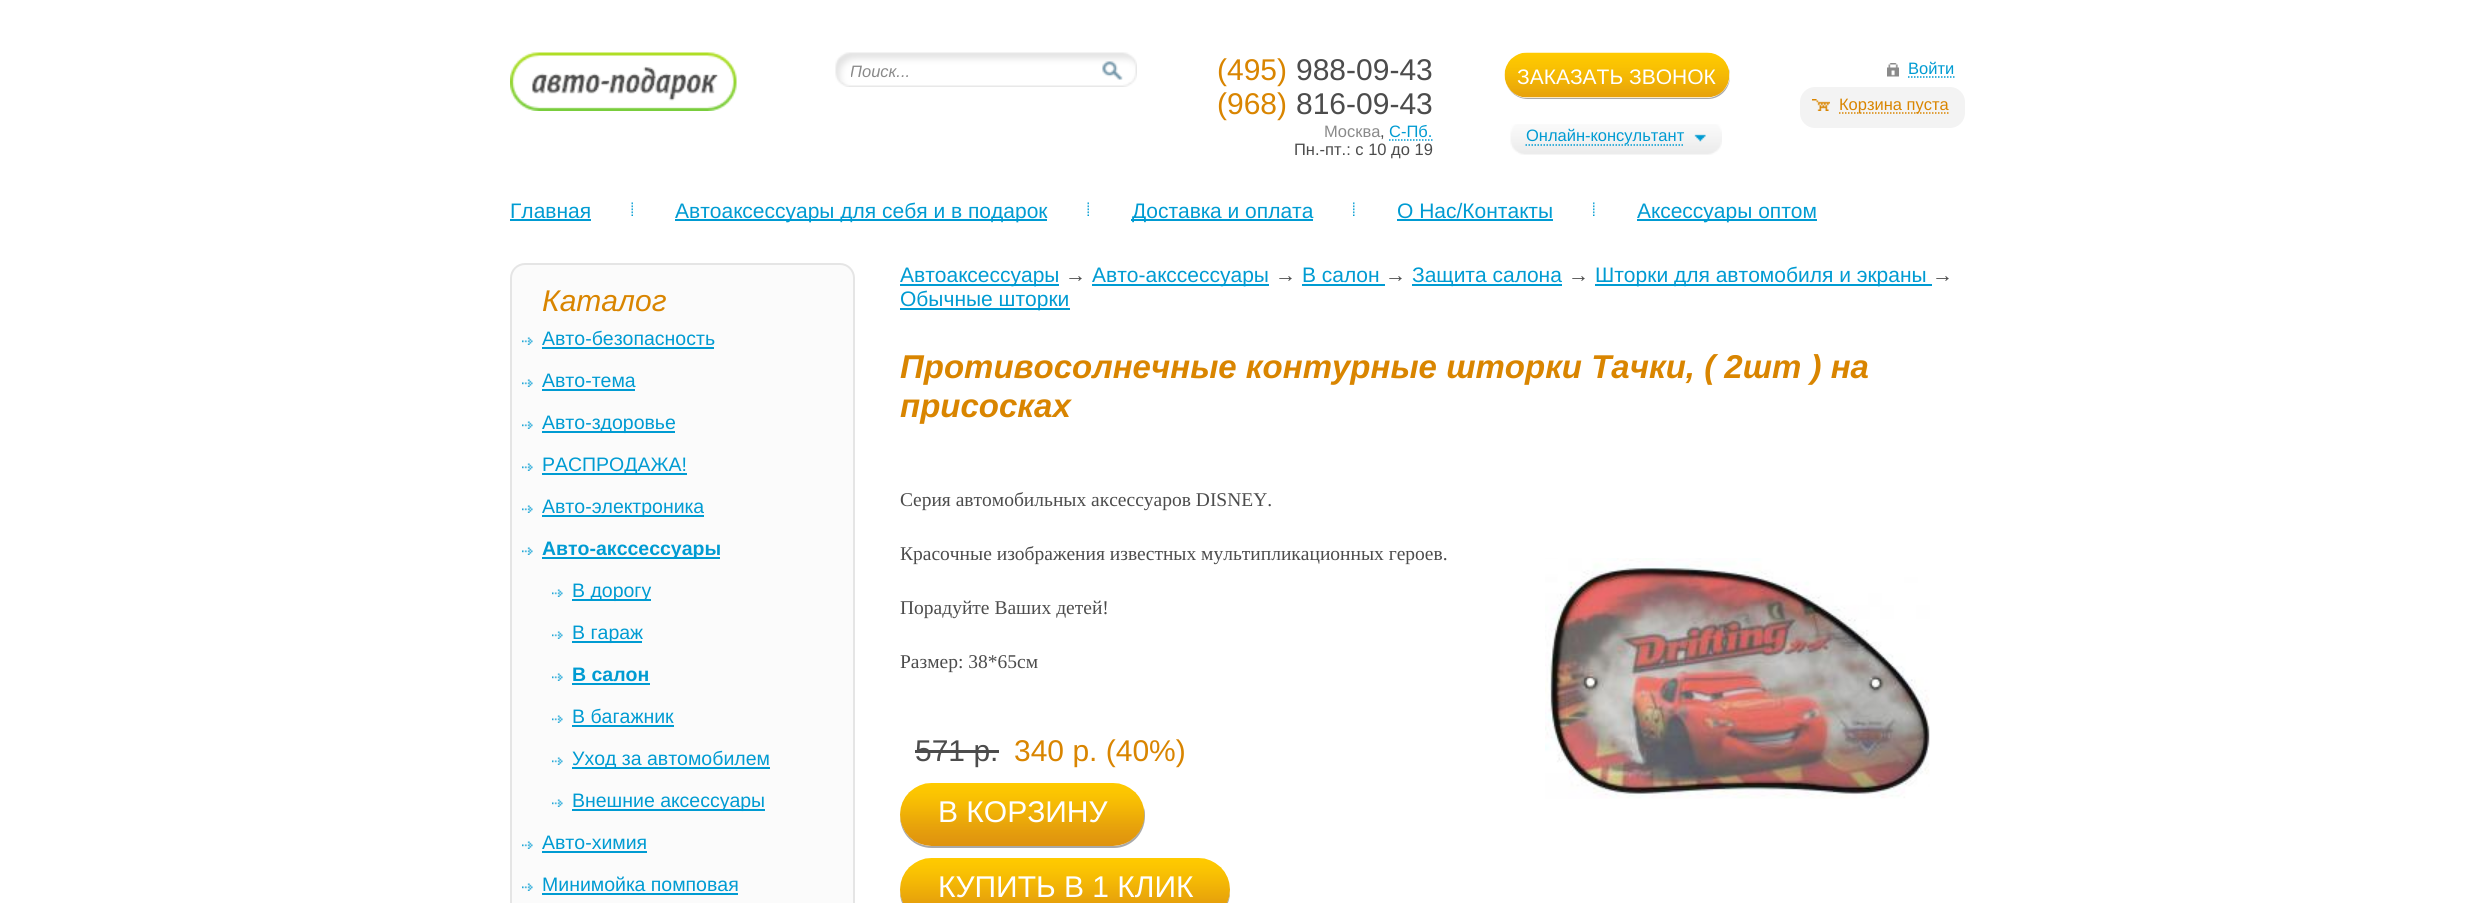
import math
import cairocffi as cairo

surface = cairo.ImageSurface(cairo.FORMAT_RGB24, 2475, 903)
ctx = cairo.Context(surface)
options = cairo.FontOptions()
options.set_hint_metrics(cairo.HINT_METRICS_OFF)
options.set_hint_style(cairo.HINT_STYLE_NONE)
ctx.set_font_options(options)
ctx.set_miter_limit(4)


def rgb(r, g, b):
    ctx.set_source_rgb(r / 255, g / 255, b / 255)


def face(family, size, italic, bold):
    ctx.select_font_face(family, cairo.FONT_SLANT_ITALIC if italic else cairo.FONT_SLANT_NORMAL, cairo.FONT_WEIGHT_BOLD if bold else cairo.FONT_WEIGHT_NORMAL)
    ctx.set_font_size(size)


def label(x, y, s):
    ctx.move_to(x, y)
    ctx.show_text(s)


def rect(x, y, w, h):
    ctx.rectangle(x, y, w, h)
    ctx.fill()


def rrect(x, y, w, h, r):
    ctx.new_sub_path()
    for i, (u, v) in enumerate([(x + w - r, y + h - r), (x + r, y + h - r), (x + r, y + r), (x + w - r, y + r)]):
        ctx.arc(u, v, r, i * math.pi / 2, (i + 1) * math.pi / 2)
    ctx.close_path()


def image(path, x, y, w, h):
    ctx.save()
    ctx.set_source_surface(cairo.ImageSurface.create_from_png(path), x, y)
    ctx.rectangle(x, y, w, h)
    ctx.fill()
    ctx.restore()


rgb(255, 255, 255)
ctx.paint()
image('image0.png', 510, 52, 227, 59)
image('image1.png', 835, 52, 302, 35)
ctx.save()
ctx.rectangle(851, 62, 225, 18)
ctx.clip()
face('Liberation Sans', 16.5, 1, 0)
rgb(138, 138, 138)
label(850, 77, 'Поиск...')
ctx.restore()
face('Liberation Sans', 30, 0, 0)
rgb(217, 133, 0)
label(1217, 80, '(495)')
rgb(76, 76, 76)
label(1296, 80, '988-09-43')
rgb(217, 133, 0)
label(1217, 114, '(968)')
rgb(76, 76, 76)
label(1296, 114, '816-09-43')
face('Liberation Sans', 16.5, 0, 0)
rgb(138, 138, 138)
label(1324, 137, 'Москва')
rgb(76, 76, 76)
label(1380, 137, ',')
rgb(0, 155, 210)
label(1389, 137, 'С-Пб.')
ctx.new_path()
ctx.move_to(1389, 140)
ctx.line_to(1432.5, 140)
ctx.set_line_width(1.5)
ctx.set_dash([1.5, 1.5])
ctx.stroke()
rgb(76, 76, 76)
label(1294, 155, 'Пн.-пт.: с 10 до 19')
rgb(169, 169, 169)
ctx.new_path()
ctx.move_to(1506, 83)
ctx.curve_to(1509, 92, 1517, 99, 1528, 99)
ctx.line_to(1708, 99)
ctx.curve_to(1720, 99, 1730, 89, 1730, 76)
ctx.curve_to(1730, 74, 1730, 71, 1729, 69)
ctx.line_to(1730, 75)
ctx.curve_to(1730, 87, 1719, 98, 1707, 98)
ctx.line_to(1527, 98)
ctx.curve_to(1517, 98, 1509, 91, 1506, 83)
ctx.close_path()
ctx.fill()
image('image2.png', 1504, 52, 226, 46)
face('Liberation Sans', 21, 0, 0)
rgb(255, 255, 255)
label(1517, 84, 'ЗАКАЗАТЬ ЗВОНОК')
image('image3.png', 1510, 124, 212, 31)
ctx.new_path()
ctx.move_to(1525.5, 145)
ctx.line_to(1683, 145)
rgb(0, 155, 210)
ctx.stroke()
face('Liberation Sans', 16.5, 0, 0)
label(1526, 141, 'Онлайн-консультант')
image('image4.png', 1887, 63, 12, 14)
label(1908, 74, 'Войти')
ctx.new_path()
ctx.move_to(1908, 77)
ctx.line_to(1954.5, 77)
ctx.stroke()
rgb(243, 243, 243)
rrect(1800, 87, 165, 41, 15)
ctx.fill()
image('image5.png', 1812, 99, 18, 12)
ctx.new_path()
ctx.move_to(1839, 113)
ctx.line_to(1948.5, 113)
rgb(217, 133, 0)
ctx.stroke()
label(1839, 110, 'Корзина пуста')
image('image6.png', 631, 202, 2, 14)
face('Liberation Sans', 21, 0, 0)
rgb(0, 155, 210)
label(510, 218, 'Главная')
rect(510, 219, 81, 2)
image('image6.png', 1087, 202, 2, 14)
rect(675, 219, 372, 2)
label(675, 218, 'Автоаксессуары для себя и в подарок')
image('image7.png', 1353, 202, 2, 14)
rect(1131, 219, 182, 2)
label(1132, 218, 'Доставка и оплата')
image('image7.png', 1593, 202, 2, 14)
label(1397, 218, 'О Нас/Контакты')
rect(1397, 219, 156, 2)
rect(1637, 219, 180, 2)
label(1637, 218, 'Аксессуары оптом')
rgb(251, 251, 251)
rrect(511, 264, 343, 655, 14)
ctx.fill_preserve()
rgb(229, 229, 229)
ctx.set_line_width(2)
ctx.set_dash([])
ctx.stroke()
face('Liberation Sans', 30, 1, 0)
rgb(217, 133, 0)
label(542, 311, 'Каталог')
image('image8.png', 522, 337, 11, 8)
face('Liberation Sans', 19.5, 0, 0)
rgb(0, 155, 210)
label(542, 345, 'Авто-безопасность')
rect(542, 347, 172, 2)
image('image8.png', 522, 379, 11, 8)
label(542, 387, 'Авто-тема')
rect(542, 389, 93, 2)
image('image8.png', 522, 421, 11, 8)
rect(542, 431, 133, 2)
label(542, 429, 'Авто-здоровье')
image('image8.png', 522, 463, 11, 8)
rect(542, 473, 145, 2)
label(542, 471, 'РАСПРОДАЖА!')
image('image8.png', 522, 505, 11, 8)
rect(542, 515, 162, 2)
label(542, 513, 'Авто-электроника')
image('image8.png', 522, 547, 11, 8)
rect(542, 557, 178, 2)
face('Liberation Sans', 19.5, 0, 1)
label(542, 555, 'Авто-акссессуары')
image('image9.png', 552, 589, 11, 8)
rect(572, 599, 79, 2)
face('Liberation Sans', 19.5, 0, 0)
label(572, 597, 'В дорогу')
image('image9.png', 552, 631, 11, 8)
rect(572, 641, 70, 2)
label(572, 639, 'В гараж')
image('image9.png', 552, 673, 11, 8)
face('Liberation Sans', 19.5, 0, 1)
label(572, 681, 'В салон')
rect(572, 683, 78, 2)
image('image9.png', 552, 715, 11, 8)
face('Liberation Sans', 19.5, 0, 0)
label(572, 723, 'В багажник')
rect(572, 725, 102, 2)
image('image9.png', 552, 757, 11, 8)
rect(572, 767, 198, 2)
label(572, 765, 'Уход за автомобилем')
image('image9.png', 552, 799, 11, 8)
rect(572, 809, 193, 2)
label(572, 807, 'Внешние аксессуары')
image('image8.png', 522, 841, 11, 8)
label(542, 849, 'Авто-химия')
rect(542, 851, 105, 2)
image('image8.png', 522, 883, 11, 8)
label(542, 891, 'Минимойка помповая')
rect(542, 893, 196, 2)
rect(900, 284, 159, 2)
face('Liberation Sans', 21, 0, 0)
label(900, 282, 'Автоаксессуары')
rgb(76, 76, 76)
label(1065, 282, '→')
rgb(0, 155, 210)
rect(1092, 284, 177, 2)
label(1092, 282, 'Авто-акссессуары')
rgb(76, 76, 76)
label(1275, 282, '→')
rgb(0, 155, 210)
label(1302, 282, 'В салон')
rect(1302, 284, 83, 2)
rgb(76, 76, 76)
label(1385, 282, '→')
rgb(0, 155, 210)
rect(1412, 284, 150, 2)
label(1412, 282, 'Защита салона')
rgb(76, 76, 76)
label(1568, 282, '→')
rgb(0, 155, 210)
rect(1595, 284, 337, 2)
label(1595, 282, 'Шторки для автомобиля и экраны')
rgb(76, 76, 76)
label(1932, 282, '→')
rgb(0, 155, 210)
rect(900, 308, 170, 2)
label(900, 306, 'Обычные шторки')
face('Liberation Sans', 33, 1, 1)
rgb(217, 133, 0)
label(900, 378, 'Противосолнечные контурные шторки Тачки, ( 2шт ) на')
label(900, 417, 'присосках')
face('Liberation Serif', 19.5, 0, 0)
rgb(76, 76, 76)
label(900, 506, 'Серия автомобильных аксессуаров DISNEY.')
label(900, 560, 'Красочные изображения известных мультипликационных героев.')
label(900, 614, 'Порадуйте Ваших детей!')
label(900, 668, 'Размер: 38*65см')
face('Liberation Sans', 30, 0, 0)
label(915, 761, '571 р.')
rect(915, 750, 84, 3)
rgb(217, 133, 0)
label(1014, 761, '340 р. (40%)')
rgb(169, 169, 169)
ctx.new_path()
ctx.move_to(900, 815)
ctx.line_to(900, 816)
ctx.curve_to(900, 834, 914, 848, 932, 848)
ctx.line_to(1114, 848)
ctx.curve_to(1131, 848, 1145, 834, 1145, 816)
ctx.curve_to(1145, 813, 1145, 811, 1144, 808)
ctx.line_to(1144, 814)
ctx.curve_to(1144, 832, 1130, 846, 1113, 846)
ctx.line_to(932, 846)
ctx.curve_to(914, 846, 901, 832, 900, 815)
ctx.close_path()
ctx.fill()
image('image10.png', 900, 783, 245, 63)
rgb(255, 255, 255)
label(938, 822, 'В КОРЗИНУ')
rgb(169, 169, 169)
ctx.new_path()
ctx.move_to(900, 890)
ctx.line_to(900, 892)
ctx.curve_to(900, 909, 914, 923, 932, 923)
ctx.line_to(1198, 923)
ctx.curve_to(1216, 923, 1230, 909, 1230, 892)
ctx.line_to(1230, 890)
ctx.curve_to(1229, 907, 1216, 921, 1198, 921)
ctx.line_to(932, 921)
ctx.curve_to(914, 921, 901, 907, 900, 890)
ctx.close_path()
ctx.fill()
image('image11.png', 900, 858, 330, 45)
rgb(255, 255, 255)
label(938, 897, 'КУПИТЬ В 1 КЛИК')
image('image12.png', 1545, 558, 385, 241)
surface.write_to_png('render.png')
